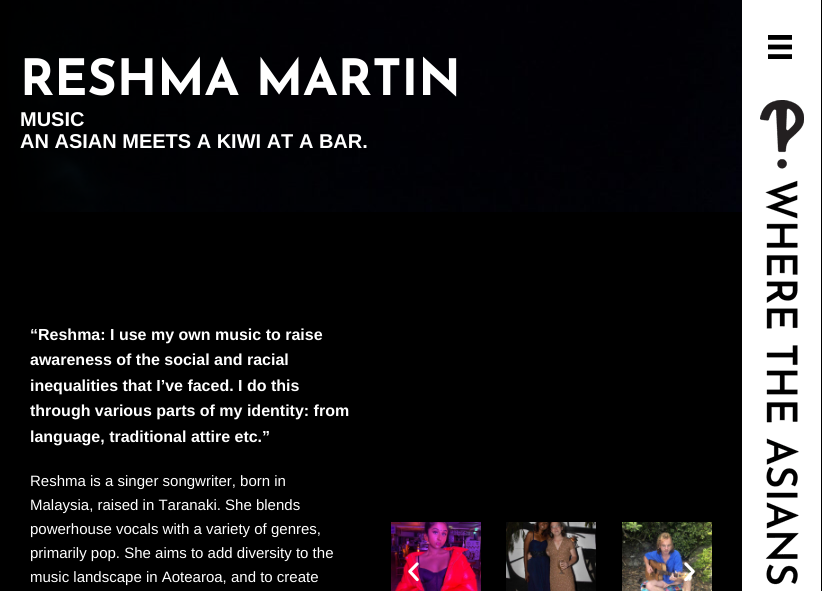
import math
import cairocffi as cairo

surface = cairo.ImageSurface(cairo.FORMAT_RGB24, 822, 591)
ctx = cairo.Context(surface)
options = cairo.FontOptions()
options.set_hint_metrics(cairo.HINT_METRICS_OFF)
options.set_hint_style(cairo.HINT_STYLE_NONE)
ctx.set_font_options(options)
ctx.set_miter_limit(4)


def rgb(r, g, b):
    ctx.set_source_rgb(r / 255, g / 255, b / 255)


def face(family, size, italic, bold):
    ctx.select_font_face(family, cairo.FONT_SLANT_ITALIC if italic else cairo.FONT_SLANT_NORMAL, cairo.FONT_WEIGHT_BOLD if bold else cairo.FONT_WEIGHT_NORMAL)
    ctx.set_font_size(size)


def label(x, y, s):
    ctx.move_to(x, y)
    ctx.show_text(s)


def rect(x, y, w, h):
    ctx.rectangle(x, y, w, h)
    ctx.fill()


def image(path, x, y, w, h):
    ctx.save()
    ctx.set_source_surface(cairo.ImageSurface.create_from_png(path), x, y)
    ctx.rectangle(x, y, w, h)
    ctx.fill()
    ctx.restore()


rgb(0, 0, 0)
ctx.paint()
image('image0.png', 0, 0, 742, 212)
face('Josefin Sans', 50, 0, 1)
rgb(255, 255, 255)
label(20, 95, 'RESHMA MARTIN')
face('Liberation Sans', 20, 0, 1)
label(20, 126, 'MUSIC')
label(20, 148, 'AN ASIAN MEETS A KIWI AT A BAR.')
face('Liberation Sans', 16, 0, 1)
label(30, 340, '“Reshma: I use my own music to raise')
label(30, 365, 'awareness of the social and racial')
label(30, 391, 'inequalities that I’ve faced. I do this')
label(30, 416, 'through various parts of my identity: from')
label(30, 442, 'language, traditional attire etc.”')
face('Liberation Sans', 15, 0, 0)
label(30, 486, 'Reshma is a singer songwriter, born in')
label(30, 510, 'Malaysia, raised in Taranaki. She blends')
label(30, 534, 'powerhouse vocals with a variety of genres,')
label(30, 558, 'primarily pop. She aims to add diversity to the')
label(30, 582, 'music landscape in Aotearoa, and to create')
image('image1.png', 391, 522, 90, 69)
image('image2.png', 506, 522, 90, 69)
image('image3.png', 622, 522, 90, 69)
image('image4.png', 408, 562, 11, 20)
image('image5.png', 684, 562, 11, 20)
rect(742, 0, 79, 591)
image('image6.png', 768, 35, 24, 24)
image('image7.png', 760, 100, 44, 485)
surface.write_to_png('render.png')
